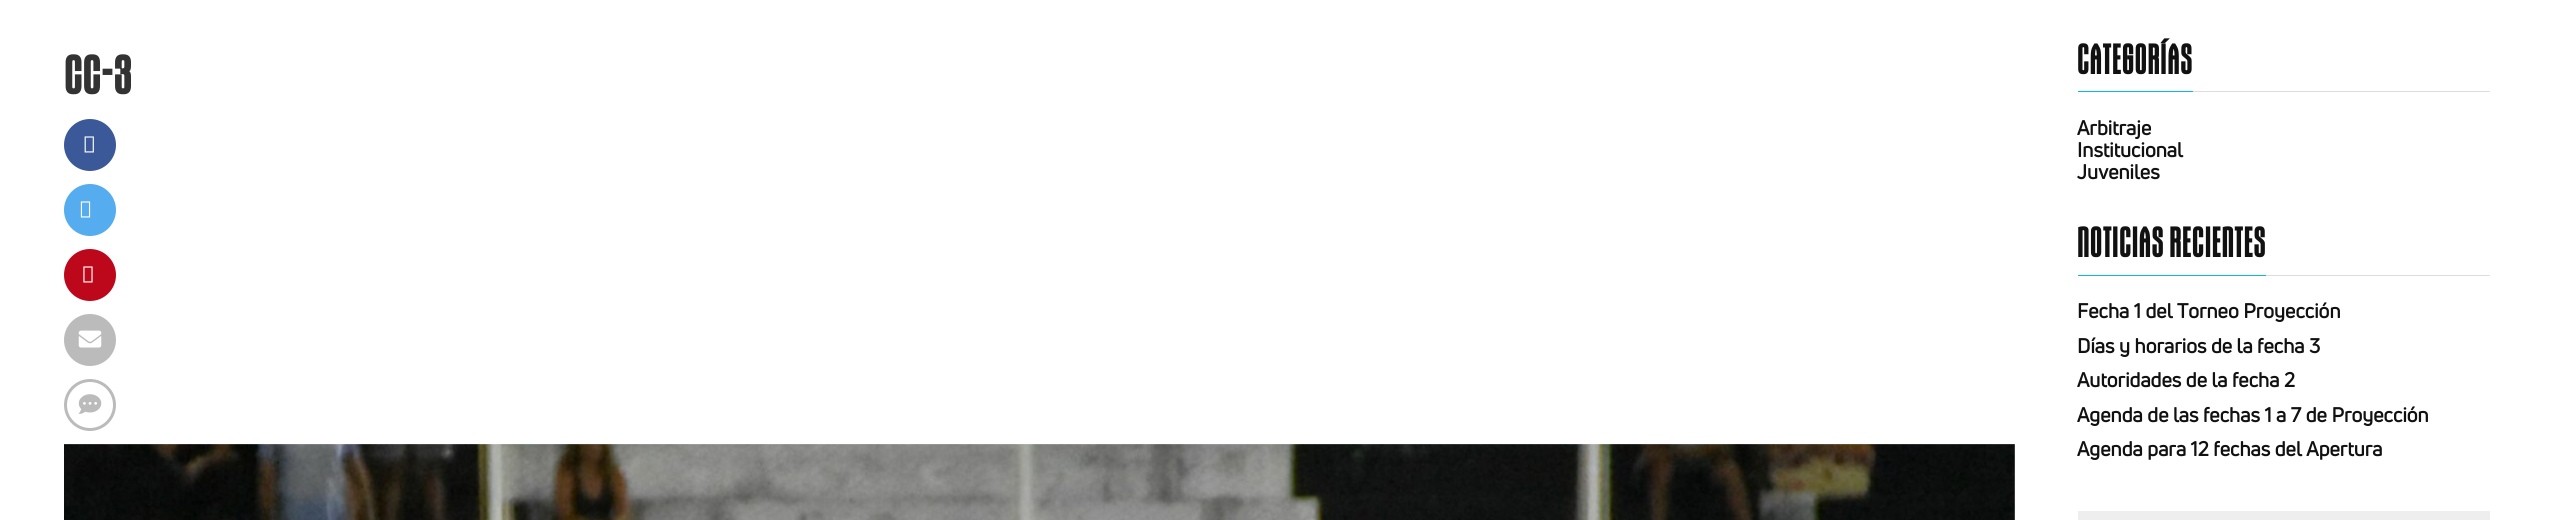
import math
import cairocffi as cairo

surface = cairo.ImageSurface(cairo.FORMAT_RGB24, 2553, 520)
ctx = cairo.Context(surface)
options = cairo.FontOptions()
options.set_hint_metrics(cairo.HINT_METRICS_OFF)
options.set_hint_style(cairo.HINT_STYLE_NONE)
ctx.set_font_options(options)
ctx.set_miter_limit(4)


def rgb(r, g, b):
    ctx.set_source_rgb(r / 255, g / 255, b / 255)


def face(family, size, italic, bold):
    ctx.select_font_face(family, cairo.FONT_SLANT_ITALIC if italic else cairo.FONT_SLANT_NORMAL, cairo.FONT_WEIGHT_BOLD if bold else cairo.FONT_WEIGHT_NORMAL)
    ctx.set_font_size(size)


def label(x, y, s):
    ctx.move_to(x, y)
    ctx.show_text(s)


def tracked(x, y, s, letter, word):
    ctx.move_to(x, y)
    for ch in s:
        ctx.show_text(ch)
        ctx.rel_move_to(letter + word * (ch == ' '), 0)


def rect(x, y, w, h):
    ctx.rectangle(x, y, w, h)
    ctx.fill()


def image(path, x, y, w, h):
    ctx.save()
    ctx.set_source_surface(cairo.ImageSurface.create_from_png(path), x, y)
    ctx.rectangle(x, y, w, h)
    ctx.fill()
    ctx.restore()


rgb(255, 255, 255)
ctx.paint()
face('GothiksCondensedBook', 62, 0, 1)
rgb(51, 51, 51)
tracked(64, 94, 'cc-3', 1.25, 0)
rgb(59, 89, 152)
ctx.new_path()
ctx.arc(90, 145, 26, 0, 2 * math.pi)
ctx.fill()
image('image0.png', 84, 136, 10, 17)
rgb(85, 172, 238)
ctx.arc(90, 210, 26, 0, 2 * math.pi)
ctx.fill()
image('image1.png', 80, 201, 11, 17)
rgb(189, 8, 28)
ctx.arc(90, 275, 26, 0, 2 * math.pi)
ctx.fill()
image('image2.png', 83, 266, 10, 17)
rgb(187, 187, 187)
ctx.arc(90, 340, 26, 0, 2 * math.pi)
ctx.fill()
image('image3.png', 78, 330, 24, 18)
ctx.arc(90, 405, 24.5, 0, 2 * math.pi)
ctx.set_line_width(3)
ctx.stroke()
image('image4.png', 78, 394, 24, 20)
image('image5.png', 64, 444, 1951, 76)
rgb(221, 221, 221)
rect(2193, 91, 297, 1)
rgb(11, 186, 217)
rect(2078, 91, 115, 1)
face('GothiksCondensedBook', 40, 0, 1)
rgb(17, 17, 17)
tracked(2077, 74, 'CATEGORÍAS', 1.25, 0)
face('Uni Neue', 20, 0, 1)
label(2077, 135, 'Arbitraje')
label(2077, 157, 'Institucional')
label(2077, 179, 'Juveniles')
rgb(221, 221, 221)
rect(2266, 275, 224, 1)
rgb(11, 186, 217)
rect(2078, 275, 188, 1)
face('GothiksCondensedBook', 40, 0, 1)
rgb(17, 17, 17)
tracked(2077, 257, 'NOTICIAS RECIENTES', 1.25, 0)
face('Uni Neue', 20, 0, 1)
label(2077, 318, 'Fecha 1 del Torneo Proyección')
label(2077, 353, 'Días y horarios de la fecha 3')
label(2077, 387, 'Autoridades de la fecha 2')
label(2077, 422, 'Agenda de las fechas 1 a 7 de Proyección')
label(2077, 456, 'Agenda para 12 fechas del Apertura')
rgb(238, 238, 238)
rect(2078, 511, 412, 9)
surface.write_to_png('render.png')
